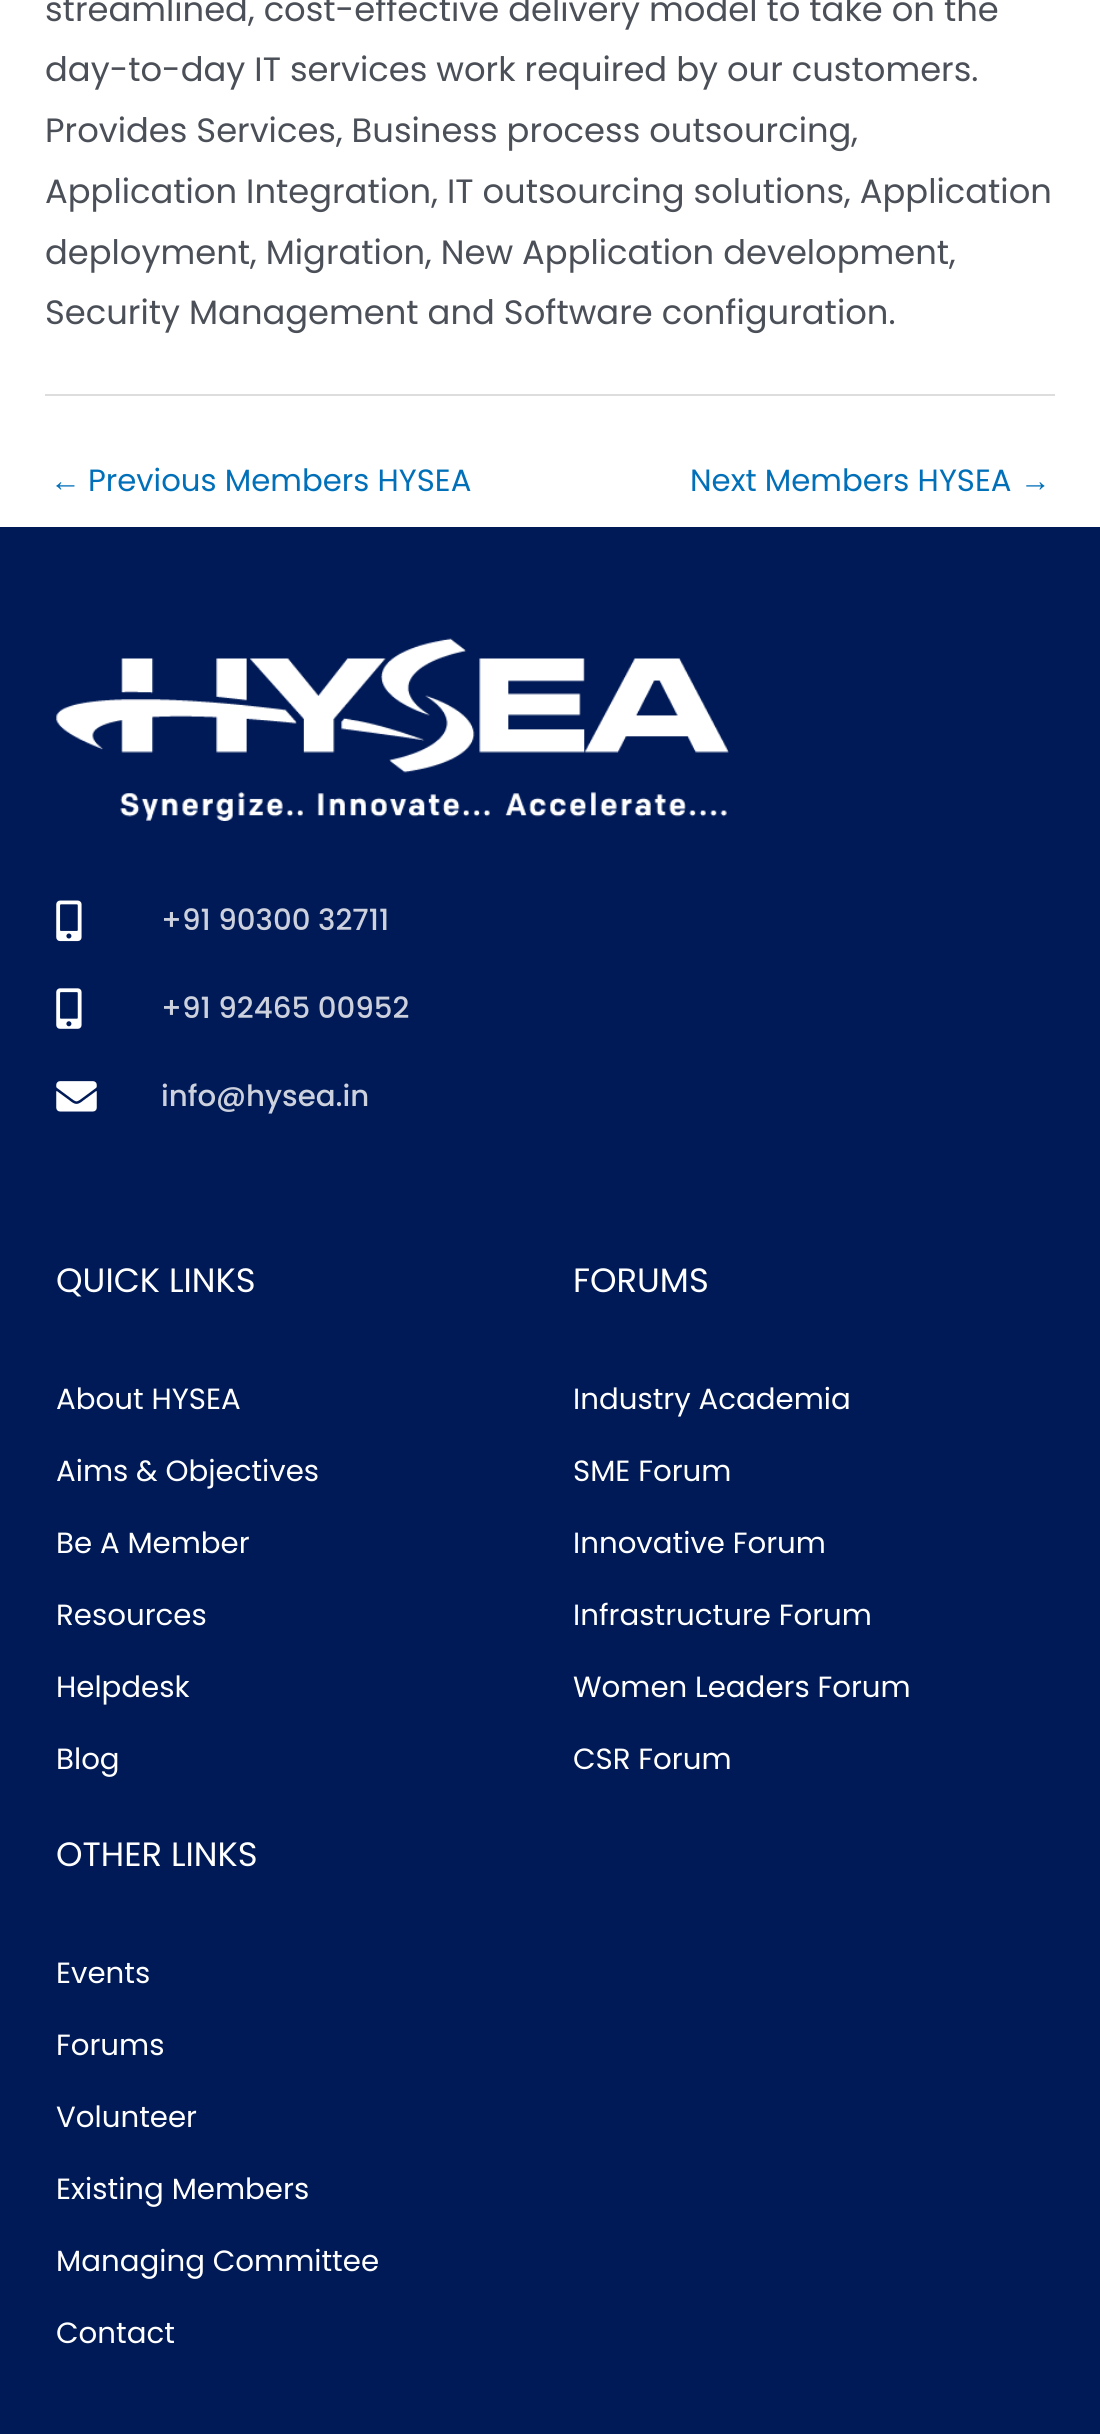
import math
import cairocffi as cairo

surface = cairo.ImageSurface(cairo.FORMAT_RGB24, 1100, 2434)
ctx = cairo.Context(surface)
options = cairo.FontOptions()
options.set_hint_metrics(cairo.HINT_METRICS_OFF)
options.set_hint_style(cairo.HINT_STYLE_NONE)
ctx.set_font_options(options)
ctx.set_miter_limit(4)


def rgb(r, g, b):
    ctx.set_source_rgb(r / 255, g / 255, b / 255)


def face(family, size, italic, bold):
    ctx.select_font_face(family, cairo.FONT_SLANT_ITALIC if italic else cairo.FONT_SLANT_NORMAL, cairo.FONT_WEIGHT_BOLD if bold else cairo.FONT_WEIGHT_NORMAL)
    ctx.set_font_size(size)


def label(x, y, s):
    ctx.move_to(x, y)
    ctx.show_text(s)


def rect(x, y, w, h):
    ctx.rectangle(x, y, w, h)
    ctx.fill()


def image(path, x, y, w, h):
    ctx.save()
    ctx.set_source_surface(cairo.ImageSurface.create_from_png(path), x, y)
    ctx.rectangle(x, y, w, h)
    ctx.fill()
    ctx.restore()


rgb(255, 255, 255)
ctx.paint()
face('Poppins', 33.75, 0, 0)
rgb(75, 79, 88)
label(45, 21, 'streamlined, cost-effective delivery model to take on the')
label(45, 81, 'day-to-day IT services work required by our customers.')
label(45, 142, 'Provides Services, Business process outsourcing,')
label(45, 203, 'Application Integration, IT outsourcing solutions, Application')
label(45, 264, 'deployment, Migration, New Application development,')
label(45, 324, 'Security Management and Software configuration.')
rgb(221, 221, 221)
rect(45, 394, 1010, 2)
face('Liberation Sans', 30.75, 0, 0)
rgb(1, 112, 185)
label(50, 491, '←')
face('Poppins', 30.75, 0, 0)
label(88, 491, 'Previous Members HYSEA')
label(690, 491, 'Next Members HYSEA')
face('Liberation Sans', 30.75, 0, 0)
label(1020, 491, '→')
rgb(0, 26, 87)
rect(0, 527, 1100, 1907)
image('image0.png', 56, 638, 673, 183)
image('image1.png', 56, 900, 26, 42)
face('Poppins Medium', 29.25, 0, 0)
rgb(204, 209, 221)
label(161, 930, '+91 90300 32711')
image('image2.png', 56, 988, 26, 41)
label(161, 1018, '+91 92465 00952')
image('image3.png', 56, 1081, 41, 31)
label(161, 1106, 'info@hysea.in')
face('Poppins', 33.75, 0, 0)
rgb(255, 255, 255)
label(56, 1292, 'QUICK LINKS')
face('Poppins', 29.25, 0, 0)
label(56, 1409, 'About HYSEA')
label(56, 1481, 'Aims & Objectives')
label(56, 1553, 'Be A Member')
label(56, 1625, 'Resources')
label(56, 1697, 'Helpdesk')
label(56, 1769, 'Blog')
face('Poppins', 33.75, 0, 0)
label(573, 1292, 'FORUMS')
face('Poppins', 29.25, 0, 0)
label(573, 1409, 'Industry Academia')
label(573, 1481, 'SME Forum')
label(573, 1553, 'Innovative Forum')
label(573, 1625, 'Infrastructure Forum')
label(573, 1697, 'Women Leaders Forum')
label(573, 1769, 'CSR Forum')
face('Poppins', 33.75, 0, 0)
label(56, 1866, 'OTHER LINKS')
face('Poppins', 29.25, 0, 0)
label(56, 1983, 'Events')
label(56, 2055, 'Forums')
label(56, 2127, 'Volunteer')
label(56, 2199, 'Existing Members')
label(56, 2271, 'Managing Committee')
label(56, 2343, 'Contact')
surface.write_to_png('render.png')
